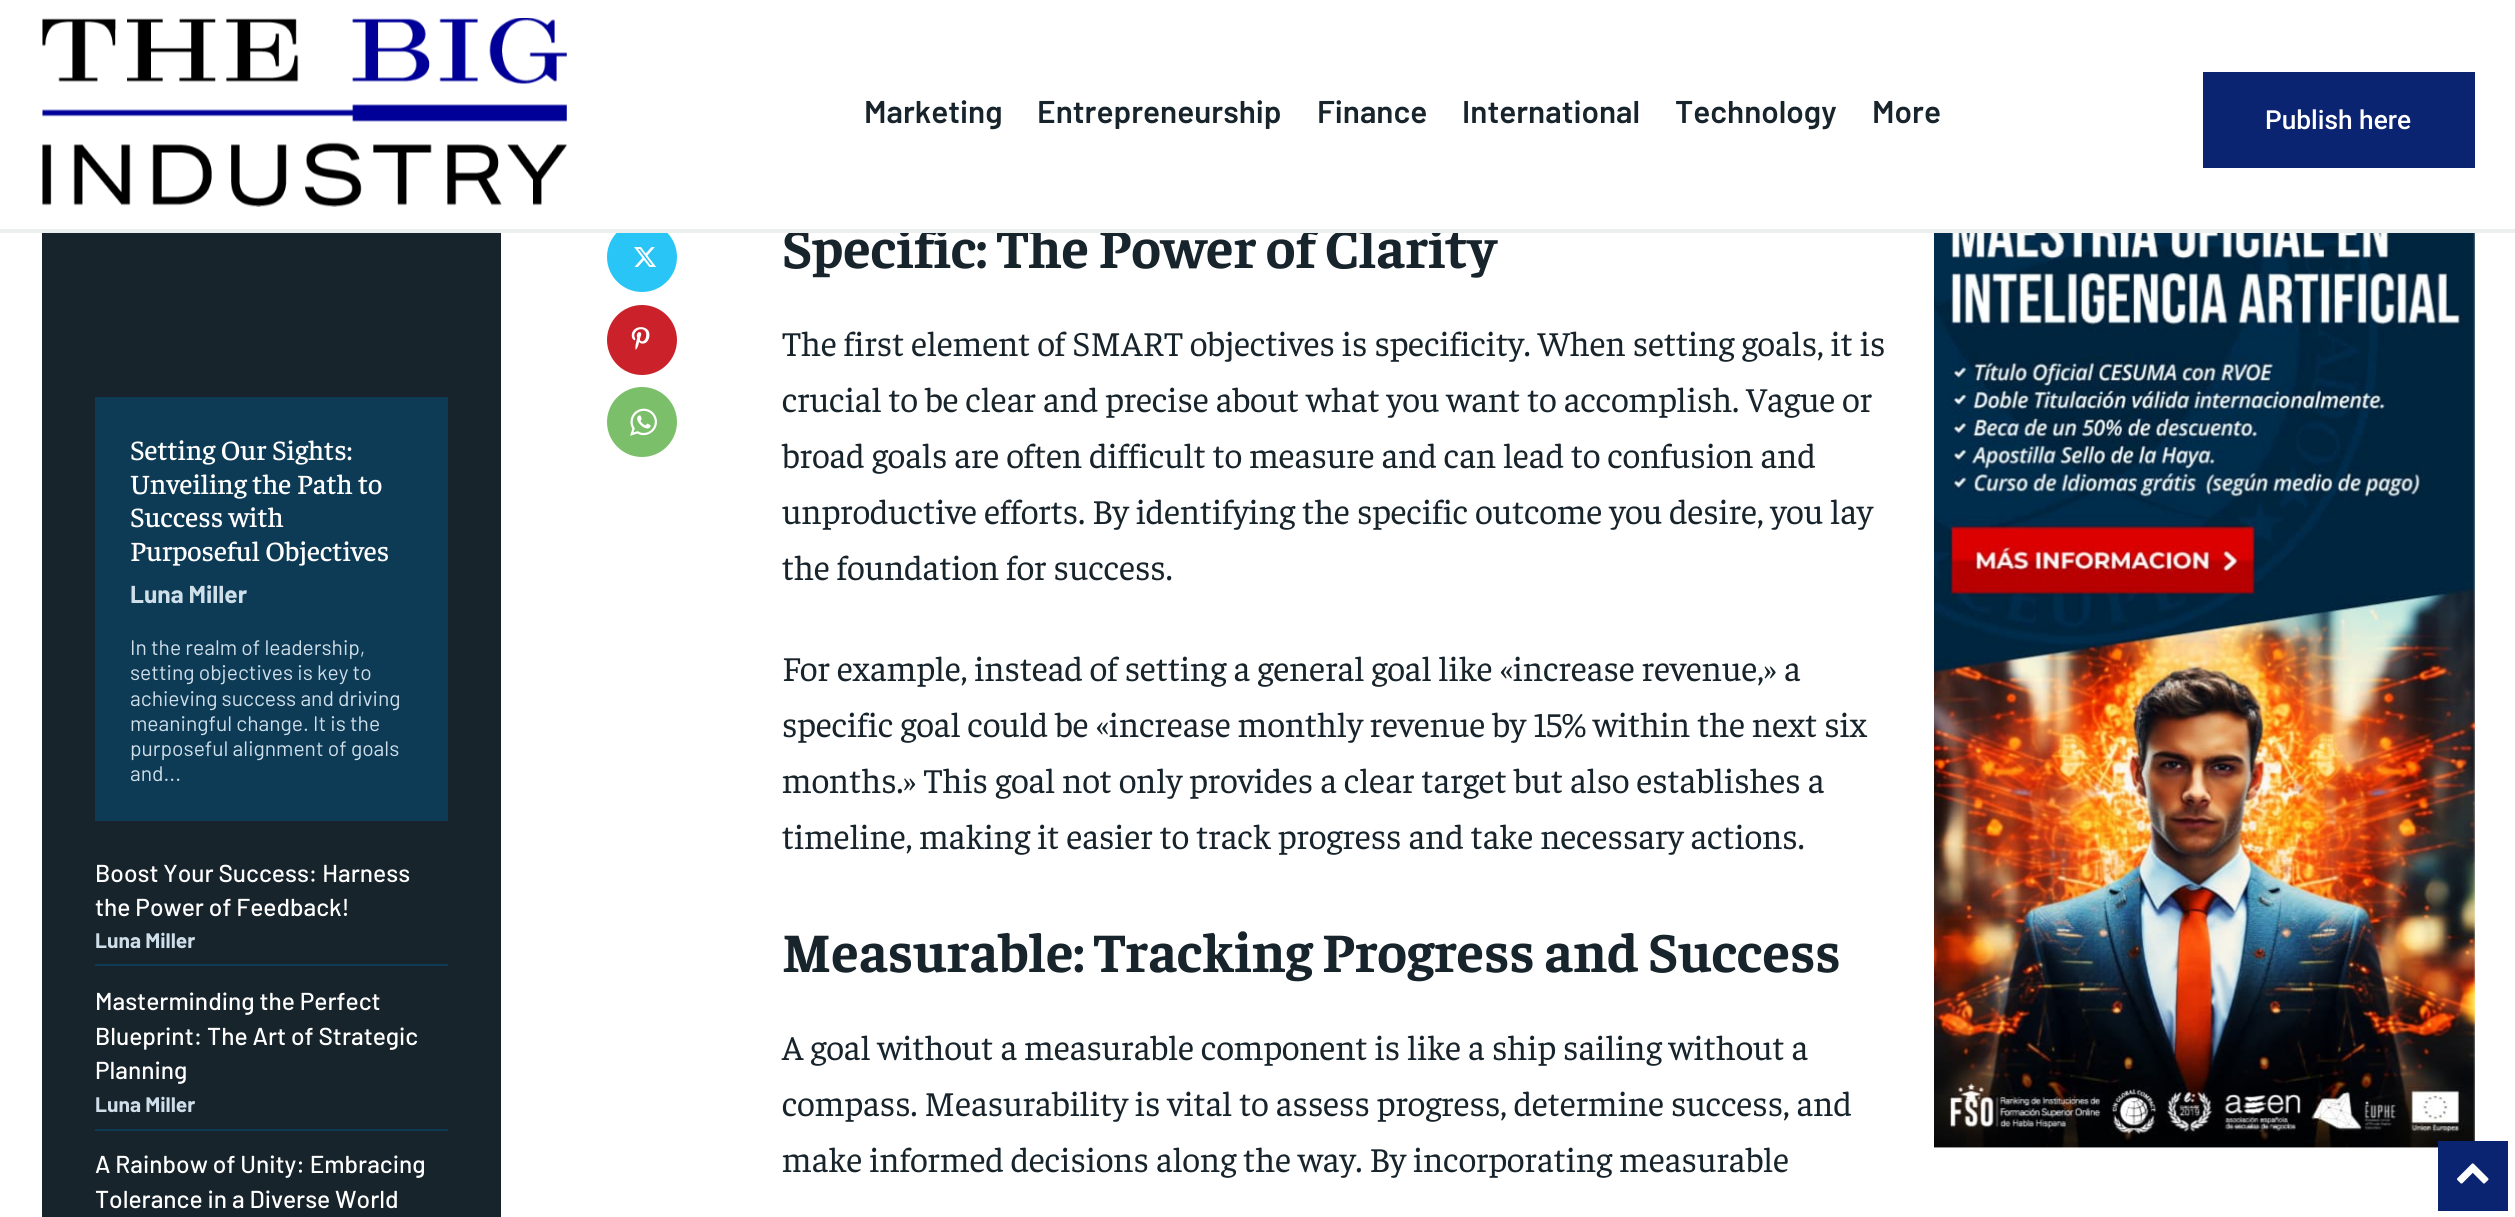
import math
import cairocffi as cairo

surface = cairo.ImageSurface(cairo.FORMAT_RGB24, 2515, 1217)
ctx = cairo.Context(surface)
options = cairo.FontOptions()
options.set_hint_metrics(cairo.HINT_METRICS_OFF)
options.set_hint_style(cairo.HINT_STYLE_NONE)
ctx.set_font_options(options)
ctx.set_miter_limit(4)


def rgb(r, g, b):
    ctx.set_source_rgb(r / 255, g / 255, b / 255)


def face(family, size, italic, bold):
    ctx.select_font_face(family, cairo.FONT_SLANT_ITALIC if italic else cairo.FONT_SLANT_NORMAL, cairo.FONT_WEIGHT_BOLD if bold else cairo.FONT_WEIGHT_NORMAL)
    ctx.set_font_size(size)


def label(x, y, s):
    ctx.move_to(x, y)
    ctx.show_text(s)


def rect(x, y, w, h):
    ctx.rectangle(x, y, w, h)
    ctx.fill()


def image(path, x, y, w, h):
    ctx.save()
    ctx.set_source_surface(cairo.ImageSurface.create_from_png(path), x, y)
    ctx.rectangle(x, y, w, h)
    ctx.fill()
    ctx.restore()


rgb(255, 255, 255)
ctx.paint()
image('image0.png', 42, 18, 525, 189)
face('Barlow SemiBold', 31.5, 0, 0)
rgb(24, 36, 44)
label(864, 123, 'Marketing')
label(1037, 123, 'Entrepreneurship')
label(1317, 123, 'Finance')
label(1462, 123, 'International')
label(1675, 123, 'Technology')
label(1872, 123, 'More')
rgb(10, 36, 114)
rect(2203, 72, 272, 96)
face('Roboto Medium', 26.25, 0, 0)
rgb(255, 255, 255)
label(2265, 129, 'Publish here')
rgb(41, 197, 246)
ctx.new_path()
ctx.arc(642, 257, 35, 0, 2 * math.pi)
ctx.fill()
face('Faustina', 56, 0, 1)
rgb(24, 36, 44)
label(782, 268, 'Specific: The Power of Clarity')
rgb(255, 255, 255)
rect(621, 222, 820, 7)
rgb(237, 238, 238)
rect(0, 229, 2515, 4)
rgb(24, 36, 44)
rect(42, 233, 459, 984)
rgb(13, 58, 85)
rect(95, 397, 353, 424)
face('Faustina Medium', 28, 0, 0)
rgb(255, 255, 255)
label(130, 460, 'Setting Our Sights:')
label(130, 494, 'Unveiling the Path to')
label(130, 527, 'Success with')
label(130, 561, 'Purposeful Objectives')
face('Barlow', 24.5, 0, 1)
rgb(206, 223, 234)
label(130, 603, 'Luna Miller')
face('Barlow', 21, 0, 0)
label(130, 655, 'In the realm of leadership,')
label(130, 680, 'setting objectives is key to')
label(130, 706, 'achieving success and driving')
label(130, 731, 'meaningful change. It is the')
label(130, 756, 'purposeful alignment of goals')
label(130, 781, 'and...')
face('Barlow Medium', 24.5, 0, 0)
rgb(255, 255, 255)
label(95, 882, 'Boost Your Success: Harness')
label(95, 916, 'the Power of Feedback!')
face('Barlow', 21, 0, 1)
rgb(206, 223, 234)
label(95, 948, 'Luna Miller')
rgb(13, 58, 85)
rect(95, 964, 353, 2)
face('Barlow Medium', 24.5, 0, 0)
rgb(255, 255, 255)
label(95, 1010, 'Masterminding the Perfect')
label(95, 1045, 'Blueprint: The Art of Strategic')
label(95, 1079, 'Planning')
face('Barlow', 21, 0, 1)
rgb(206, 223, 234)
label(95, 1112, 'Luna Miller')
rgb(13, 58, 85)
rect(95, 1129, 353, 2)
face('Barlow Medium', 24.5, 0, 0)
rgb(255, 255, 255)
label(95, 1173, 'A Rainbow of Unity: Embracing')
label(95, 1208, 'Tolerance in a Diverse World')
image('image1.png', 634, 247, 22, 20)
rgb(202, 33, 42)
ctx.arc(642, 340, 35, 0, 2 * math.pi)
ctx.fill()
image('image2.png', 631, 327, 19, 23)
rgb(123, 191, 106)
ctx.arc(642, 422, 35, 0, 2 * math.pi)
ctx.fill()
image('image3.png', 630, 408, 27, 28)
face('Faustina', 35, 0, 0)
rgb(24, 36, 44)
label(782, 356, 'The first element of SMART objectives is specificity. When setting goals, it is')
label(782, 412, 'crucial to be clear and precise about what you want to accomplish. Vague or')
label(782, 468, 'broad goals are often difficult to measure and can lead to confusion and')
label(782, 524, 'unproductive efforts. By identifying the specific outcome you desire, you lay')
label(782, 580, 'the foundation for success.')
label(782, 681, 'For example, instead of setting a general goal like «increase revenue,» a')
label(782, 737, 'specific goal could be «increase monthly revenue by 15% within the next six')
label(782, 793, 'months.» This goal not only provides a clear target but also establishes a')
label(782, 849, 'timeline, making it easier to track progress and take necessary actions.')
face('Faustina', 56, 0, 1)
label(782, 972, 'Measurable: Tracking Progress and Success')
face('Faustina', 35, 0, 0)
label(782, 1060, 'A goal without a measurable component is like a ship sailing without a')
label(782, 1116, 'compass. Measurability is vital to assess progress, determine success, and')
label(782, 1172, 'make informed decisions along the way. By incorporating measurable')
image('image4.png', 1934, 233, 541, 915)
rgb(10, 36, 114)
rect(2438, 1141, 70, 70)
image('image5.png', 2457, 1163, 32, 21)
surface.write_to_png('render.png')
